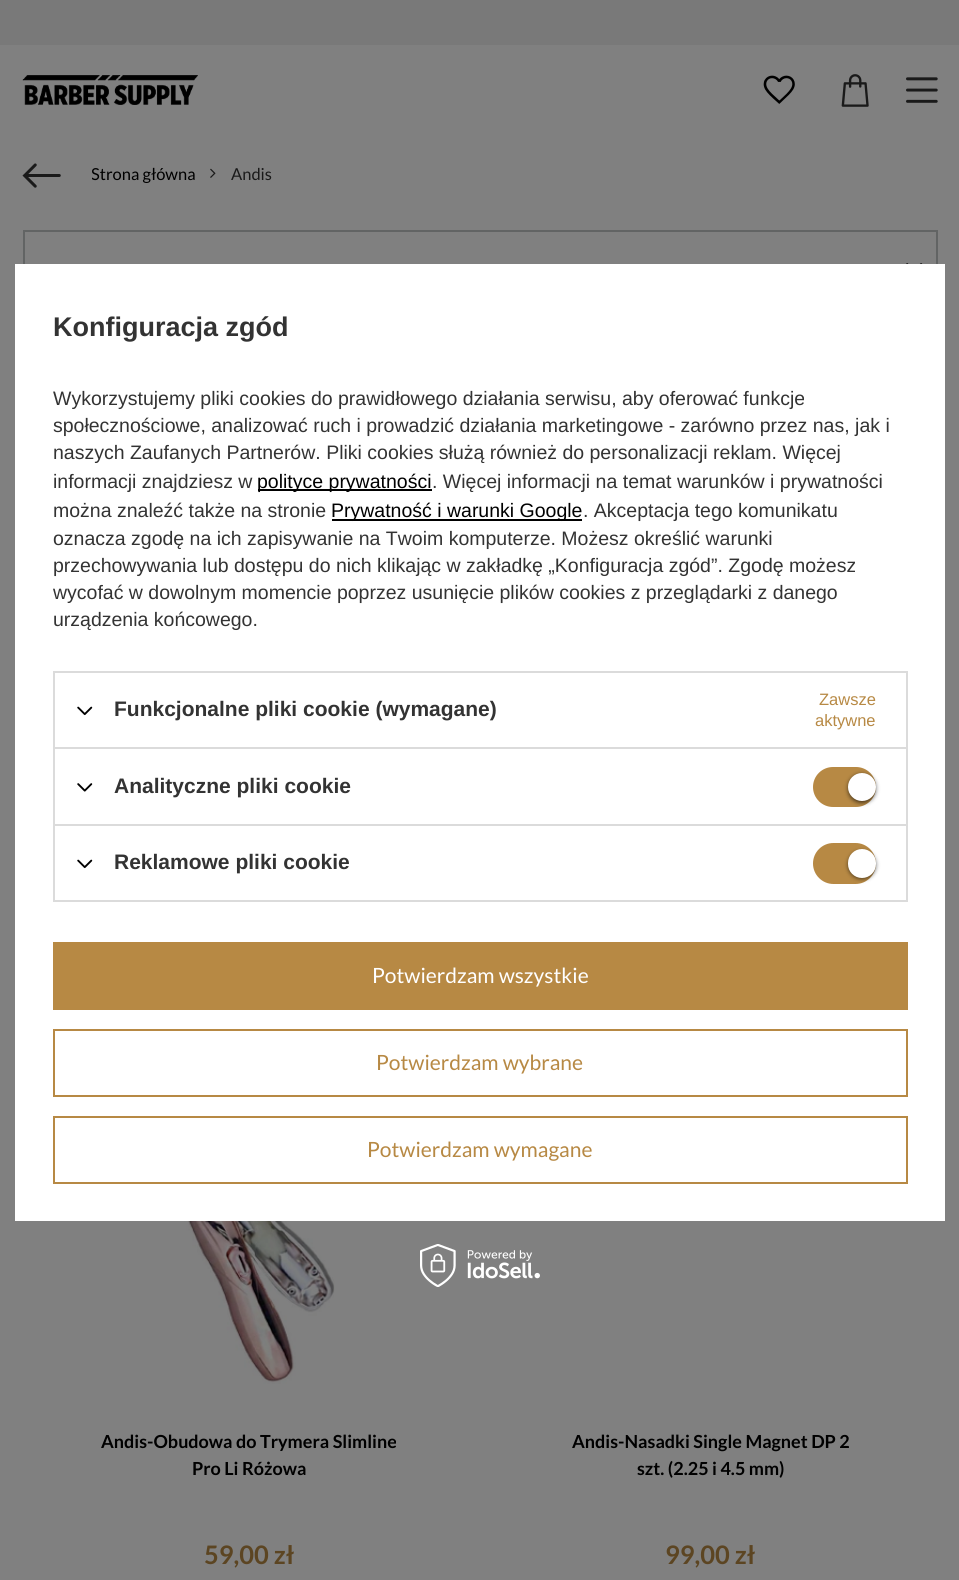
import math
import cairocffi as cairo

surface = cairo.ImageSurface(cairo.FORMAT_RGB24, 959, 1580)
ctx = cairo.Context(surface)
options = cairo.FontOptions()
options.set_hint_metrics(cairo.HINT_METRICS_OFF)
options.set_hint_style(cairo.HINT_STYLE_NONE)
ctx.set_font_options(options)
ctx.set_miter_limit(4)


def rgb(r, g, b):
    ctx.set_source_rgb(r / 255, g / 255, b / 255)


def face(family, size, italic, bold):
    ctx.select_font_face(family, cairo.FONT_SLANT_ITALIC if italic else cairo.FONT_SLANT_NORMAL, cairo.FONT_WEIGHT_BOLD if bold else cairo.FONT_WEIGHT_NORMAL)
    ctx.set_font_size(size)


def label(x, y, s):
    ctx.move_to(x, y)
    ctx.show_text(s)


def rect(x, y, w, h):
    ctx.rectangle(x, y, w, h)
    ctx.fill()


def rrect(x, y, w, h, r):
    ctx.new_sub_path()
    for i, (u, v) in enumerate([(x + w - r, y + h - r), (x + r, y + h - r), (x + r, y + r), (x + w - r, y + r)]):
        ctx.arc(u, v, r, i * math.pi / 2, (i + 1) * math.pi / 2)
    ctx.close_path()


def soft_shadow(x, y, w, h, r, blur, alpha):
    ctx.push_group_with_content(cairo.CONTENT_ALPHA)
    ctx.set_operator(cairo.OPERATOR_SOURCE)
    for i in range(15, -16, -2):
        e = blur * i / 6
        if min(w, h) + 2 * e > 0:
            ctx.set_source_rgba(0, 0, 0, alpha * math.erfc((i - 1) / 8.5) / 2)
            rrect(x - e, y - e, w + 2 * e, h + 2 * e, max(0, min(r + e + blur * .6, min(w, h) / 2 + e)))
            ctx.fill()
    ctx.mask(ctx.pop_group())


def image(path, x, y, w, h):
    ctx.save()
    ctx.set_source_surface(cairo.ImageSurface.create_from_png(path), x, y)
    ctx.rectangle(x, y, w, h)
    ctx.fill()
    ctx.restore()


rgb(128, 128, 128)
ctx.paint()
rgb(121, 121, 121)
rect(0, 0, 959, 45)
image('image0.png', 22, 75, 176, 30)
image('image1.png', 763, 75, 32, 29)
image('image2.png', 841, 74, 28, 33)
image('image3.png', 906, 77, 32, 26)
image('image4.png', 22, 163, 39, 25)
ctx.save()
ctx.rectangle(92, 150, 181, 50)
ctx.clip()
face('Lato', 16.5, 0, 0)
rgb(0, 0, 0)
label(91, 180, 'Strona główna')
ctx.restore()
image('image5.png', 210, 168, 6, 10)
face('Lato', 16.5, 0, 0)
rgb(26, 26, 26)
label(231, 180, 'Andis')
ctx.rectangle(24, 231, 913, 73)
rgb(98, 100, 100)
ctx.stroke()
image('image6.png', 906, 263, 17, 1)
image('image7.png', 181, 1221, 154, 163)
face('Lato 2', 18, 0, 1)
rgb(0, 0, 0)
label(101, 1448, 'Andis-Obudowa do Trymera Slimline')
label(192, 1475, 'Pro Li Różowa')
face('Lato', 25.5, 0, 1)
rgb(92, 69, 34)
label(204, 1564, '59,00 zł')
face('Lato 2', 18, 0, 1)
rgb(0, 0, 0)
label(572, 1448, 'Andis-Nasadki Single Magnet DP 2')
label(637, 1475, 'szt. (2.25 i 4.5 mm)')
face('Lato', 25.5, 0, 1)
rgb(92, 69, 34)
label(665, 1564, '99,00 zł')
rgb(255, 255, 255)
rect(15, 264, 930, 957)
face('Liberation Sans', 27, 0, 1)
rgb(51, 51, 51)
label(53, 336, 'Konfiguracja zgód')
face('Liberation Sans', 19.5, 0, 0)
label(53, 405, 'Wykorzystujemy pliki cookies do prawidłowego działania serwisu, aby oferować funkcje')
label(53, 432, 'społecznościowe, analizować ruch i prowadzić działania marketingowe - zarówno przez nas, jak i')
label(53, 459, 'naszych Zaufanych Partnerów. Pliki cookies służą również do personalizacji reklam. Więcej')
label(53, 488, 'informacji znajdziesz w')
rgb(0, 0, 0)
rect(258, 489, 174, 2)
label(257, 488, 'polityce prywatności')
rgb(51, 51, 51)
label(432, 488, '. Więcej informacji na temat warunków i prywatności')
label(53, 517, 'można znaleźć także na stronie')
rgb(0, 0, 0)
rect(332, 519, 250, 2)
label(331, 517, 'Prywatność i warunki Google')
rgb(51, 51, 51)
label(583, 517, '. Akceptacja tego komunikatu')
label(53, 545, 'oznacza zgodę na ich zapisywanie na Twoim komputerze. Możesz określić warunki')
label(53, 572, 'przechowywania lub dostępu do nich klikając w zakładkę „Konfiguracja zgód”. Zgodę możesz')
label(53, 599, 'wycofać w dowolnym momencie poprzez usunięcie plików cookies z przeglądarki z danego')
label(53, 626, 'urządzenia końcowego.')
rgb(219, 219, 219)
rect(53, 671, 855, 2)
rect(906, 671, 2, 76)
rect(53, 671, 2, 76)
image('image8.png', 77, 706, 16, 10)
face('Liberation Sans', 21, 0, 1)
rgb(51, 51, 51)
label(114, 716, 'Funkcjonalne pliki cookie (wymagane)')
face('Liberation Sans', 16.5, 0, 0)
rgb(183, 137, 68)
label(819, 705, 'Zawsze')
label(815, 726, 'aktywne')
rgb(219, 219, 219)
rect(53, 747, 855, 2)
rect(906, 747, 2, 77)
rect(53, 747, 2, 77)
image('image9.png', 77, 783, 16, 9)
face('Liberation Sans', 21, 0, 1)
rgb(51, 51, 51)
label(114, 793, 'Analityczne pliki cookie')
rgb(183, 137, 68)
rrect(813, 767, 63, 40, 20)
ctx.fill()
rgb(0, 0, 0)
soft_shadow(848, 774, 28, 29, 14, 2, 0.56)
rgb(255, 255, 255)
ctx.arc(862, 787, 14, 0, 2 * math.pi)
ctx.fill()
ctx.rectangle(54, 825, 853, 76)
rgb(219, 219, 219)
ctx.stroke()
image('image8.png', 77, 859, 16, 10)
rgb(51, 51, 51)
label(114, 869, 'Reklamowe pliki cookie')
rgb(183, 137, 68)
rrect(813, 843, 63, 41, 20.5)
ctx.fill()
rgb(0, 0, 0)
soft_shadow(848, 851, 28, 28, 14, 2, 0.56)
rgb(255, 255, 255)
rrect(848, 849, 28, 29, 14)
ctx.fill()
rgb(183, 137, 68)
rect(53, 942, 855, 68)
face('Lato', 21, 0, 0)
rgb(255, 255, 255)
label(372, 983, 'Potwierdzam wszystkie')
ctx.rectangle(54, 1030, 853, 66)
rgb(183, 137, 68)
ctx.stroke()
label(376, 1070, 'Potwierdzam wybrane')
ctx.rectangle(54, 1117, 853, 66)
ctx.stroke()
label(367, 1157, 'Potwierdzam wymagane')
image('image10.png', 420, 1244, 120, 43)
surface.write_to_png('render.png')
